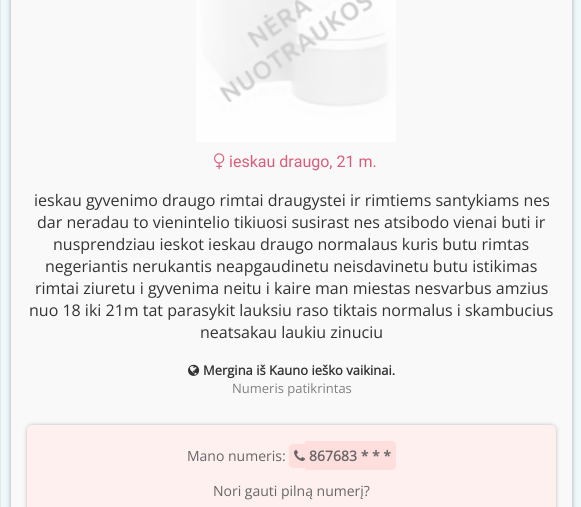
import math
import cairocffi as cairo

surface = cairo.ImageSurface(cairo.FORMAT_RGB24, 581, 507)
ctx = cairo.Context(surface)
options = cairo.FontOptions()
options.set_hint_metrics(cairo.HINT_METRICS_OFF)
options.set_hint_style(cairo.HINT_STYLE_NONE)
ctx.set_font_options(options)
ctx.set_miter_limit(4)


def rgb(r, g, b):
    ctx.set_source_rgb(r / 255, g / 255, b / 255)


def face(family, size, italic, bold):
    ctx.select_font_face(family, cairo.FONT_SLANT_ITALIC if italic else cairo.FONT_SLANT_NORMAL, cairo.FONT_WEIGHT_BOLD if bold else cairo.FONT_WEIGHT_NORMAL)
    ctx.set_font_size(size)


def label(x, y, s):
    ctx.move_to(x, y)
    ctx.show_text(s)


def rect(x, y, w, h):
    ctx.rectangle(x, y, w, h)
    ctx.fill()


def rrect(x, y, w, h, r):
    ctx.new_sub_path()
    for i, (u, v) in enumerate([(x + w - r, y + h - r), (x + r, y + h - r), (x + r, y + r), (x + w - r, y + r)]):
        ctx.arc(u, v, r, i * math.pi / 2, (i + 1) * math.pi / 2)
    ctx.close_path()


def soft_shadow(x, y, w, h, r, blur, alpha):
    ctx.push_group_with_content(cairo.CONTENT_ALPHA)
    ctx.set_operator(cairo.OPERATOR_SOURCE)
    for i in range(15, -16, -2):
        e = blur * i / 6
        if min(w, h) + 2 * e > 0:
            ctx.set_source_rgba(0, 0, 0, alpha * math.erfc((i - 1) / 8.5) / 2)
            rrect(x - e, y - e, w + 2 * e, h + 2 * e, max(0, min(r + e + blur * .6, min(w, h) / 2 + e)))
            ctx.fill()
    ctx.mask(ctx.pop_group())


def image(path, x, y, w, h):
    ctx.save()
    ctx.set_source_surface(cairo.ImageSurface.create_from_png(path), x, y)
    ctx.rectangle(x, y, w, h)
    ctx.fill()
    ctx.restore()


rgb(230, 230, 230)
ctx.paint()
rgb(239, 248, 251)
rect(1, 0, 580, 507)
rgb(168, 168, 168)
soft_shadow(11, -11, 561, 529, 3, 2.5, 1)
rgb(249, 249, 249)
rect(11, 0, 561, 507)
ctx.new_path()
ctx.move_to(11.5, -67.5)
ctx.line_to(571.5, -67.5)
ctx.line_to(571.5, 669)
ctx.curve_to(571.5, 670.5, 570.5, 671.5, 569, 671.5)
ctx.line_to(14, 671.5)
ctx.curve_to(12.5, 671.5, 11.5, 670.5, 11.5, 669)
ctx.close_path()
rgb(239, 248, 251)
ctx.set_line_width(1)
ctx.set_dash([1, 1])
ctx.stroke()
image('image0.png', 196, 0, 200, 142)
image('image1.png', 214, 153, 11, 17)
face('Roboto', 16, 0, 0)
rgb(218, 92, 123)
label(229, 167, 'ieskau draugo, 21 m.')
face('Open Sans', 16, 0, 0)
rgb(51, 51, 51)
label(34, 206, 'ieskau gyvenimo draugo rimtai draugystei ir rimtiems santykiams nes')
label(37, 228, 'dar neradau to vienintelio tikiuosi susirast nes atsibodo vienai buti ir')
label(53, 250, 'nusprendziau ieskot ieskau draugo normalaus kuris butu rimtas')
label(45, 272, 'negeriantis nerukantis neapgaudinetu neisdavinetu butu istikimas')
label(35, 294, 'rimtai ziuretu i gyvenima neitu i kaire man miestas nesvarbus amzius')
label(29, 316, 'nuo 18 iki 21m tat parasykit lauksiu raso tiktais normalus i skambucius')
label(200, 338, 'neatsakau laukiu zinuciu')
image('image2.png', 188, 364, 12, 12)
face('Open Sans', 13, 0, 1)
label(203, 375, 'Mergina iš Kauno ieško vaikinai.')
face('Open Sans', 13, 0, 0)
rgb(128, 128, 128)
label(232, 393, 'Numeris patikrintas')
rgb(188, 188, 188)
soft_shadow(27, 425, 529, 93, 5, 2, 1)
rgb(255, 240, 240)
rrect(27, 425, 529, 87, 5)
ctx.fill()
face('Open Sans', 14, 0, 0)
rgb(102, 102, 102)
label(187, 461, 'Mano numeris:')
rgb(255, 222, 222)
ctx.new_path()
ctx.move_to(293, 444)
ctx.line_to(305, 444)
ctx.line_to(305, 468)
ctx.line_to(293, 468)
ctx.curve_to(291, 468, 289, 466, 289, 464)
ctx.line_to(289, 448)
ctx.curve_to(289, 446, 291, 444, 293, 444)
ctx.close_path()
ctx.fill()
ctx.new_path()
ctx.move_to(305, 441)
ctx.line_to(392, 441)
ctx.curve_to(394, 441, 396, 443, 396, 445)
ctx.line_to(396, 466)
ctx.curve_to(396, 468, 394, 470, 392, 470)
ctx.line_to(305, 470)
ctx.close_path()
ctx.fill()
image('image3.png', 294, 450, 11, 11)
face('Open Sans', 14, 0, 1)
rgb(102, 102, 102)
label(309, 461, '867683 * * *')
face('Open Sans', 14, 0, 0)
label(213, 496, 'Nori gauti pilną numerį?')
surface.write_to_png('render.png')
